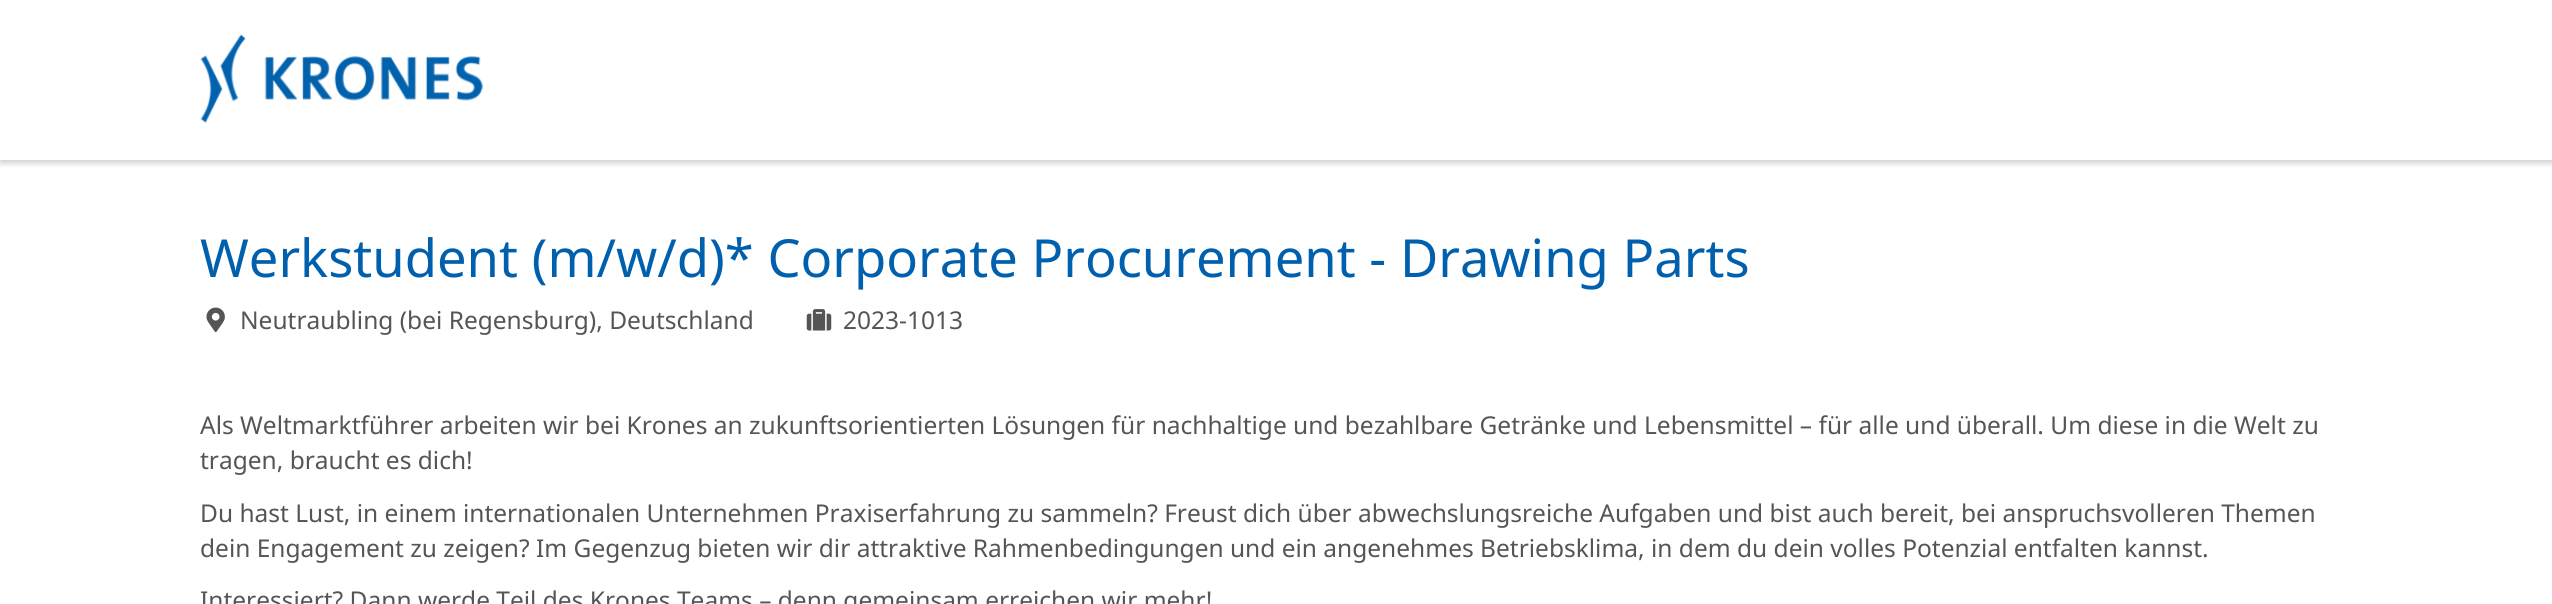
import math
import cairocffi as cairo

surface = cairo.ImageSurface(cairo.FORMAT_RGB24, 2552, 604)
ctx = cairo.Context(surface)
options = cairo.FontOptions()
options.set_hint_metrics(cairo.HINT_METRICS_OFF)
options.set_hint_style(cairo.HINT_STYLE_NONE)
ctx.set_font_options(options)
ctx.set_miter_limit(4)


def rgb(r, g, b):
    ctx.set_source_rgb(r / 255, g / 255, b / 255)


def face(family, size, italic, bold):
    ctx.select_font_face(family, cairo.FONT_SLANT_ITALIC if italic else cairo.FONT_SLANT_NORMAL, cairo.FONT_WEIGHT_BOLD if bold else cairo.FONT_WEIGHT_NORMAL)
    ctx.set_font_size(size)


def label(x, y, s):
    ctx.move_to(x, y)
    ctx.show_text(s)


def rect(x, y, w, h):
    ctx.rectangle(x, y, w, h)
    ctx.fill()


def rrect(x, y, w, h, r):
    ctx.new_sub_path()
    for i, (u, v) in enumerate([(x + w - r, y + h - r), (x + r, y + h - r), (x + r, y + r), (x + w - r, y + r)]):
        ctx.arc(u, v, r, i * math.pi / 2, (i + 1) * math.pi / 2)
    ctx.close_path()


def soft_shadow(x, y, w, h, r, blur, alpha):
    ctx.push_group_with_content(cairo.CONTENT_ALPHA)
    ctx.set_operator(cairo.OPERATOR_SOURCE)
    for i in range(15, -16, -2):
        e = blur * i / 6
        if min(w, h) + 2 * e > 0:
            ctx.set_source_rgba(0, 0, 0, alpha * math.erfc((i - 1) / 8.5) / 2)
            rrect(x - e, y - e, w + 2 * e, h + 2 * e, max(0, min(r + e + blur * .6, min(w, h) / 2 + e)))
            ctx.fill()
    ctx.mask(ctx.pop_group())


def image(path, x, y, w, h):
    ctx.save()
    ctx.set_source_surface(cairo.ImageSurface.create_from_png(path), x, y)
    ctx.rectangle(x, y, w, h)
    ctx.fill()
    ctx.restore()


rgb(255, 255, 255)
ctx.paint()
ctx.save()
ctx.rectangle(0, 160, 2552, 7)
ctx.clip()
rgb(0, 0, 0)
soft_shadow(0, 4, 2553, 159, 0, 3.5, 0.2)
ctx.restore()
rgb(255, 255, 255)
rect(0, 159, 2552, 1)
image('image0.png', 200, 34, 283, 89)
face('Noto Sans', 52.5, 0, 0)
rgb(0, 96, 173)
label(200, 277, 'Werkstudent (m/w/d)* Corporate Procurement - Drawing Parts')
image('image1.png', 206, 307, 19, 25)
face('Noto Sans', 24.5, 0, 0)
rgb(85, 85, 85)
label(240, 329, 'Neutraubling (bei Regensburg), Deutschland')
image('image2.png', 806, 309, 26, 22)
label(843, 329, '2023-1013')
label(200, 434, 'Als Weltmarktführer arbeiten wir bei Krones an zukunftsorientierten Lösungen für nachhaltige und bezahlbare Getränke und Lebensmittel – für alle und überall. Um diese in die Welt zu')
label(200, 469, 'tragen, braucht es dich!')
label(200, 522, 'Du hast Lust, in einem internationalen Unternehmen Praxiserfahrung zu sammeln? Freust dich über abwechslungsreiche Aufgaben und bist auch bereit, bei anspruchsvolleren Themen')
label(200, 557, 'dein Engagement zu zeigen? Im Gegenzug bieten wir dir attraktive Rahmenbedingungen und ein angenehmes Betriebsklima, in dem du dein volles Potenzial entfalten kannst.')
label(200, 609, 'Interessiert? Dann werde Teil des Krones Teams – denn gemeinsam erreichen wir mehr!')
surface.write_to_png('render.png')
